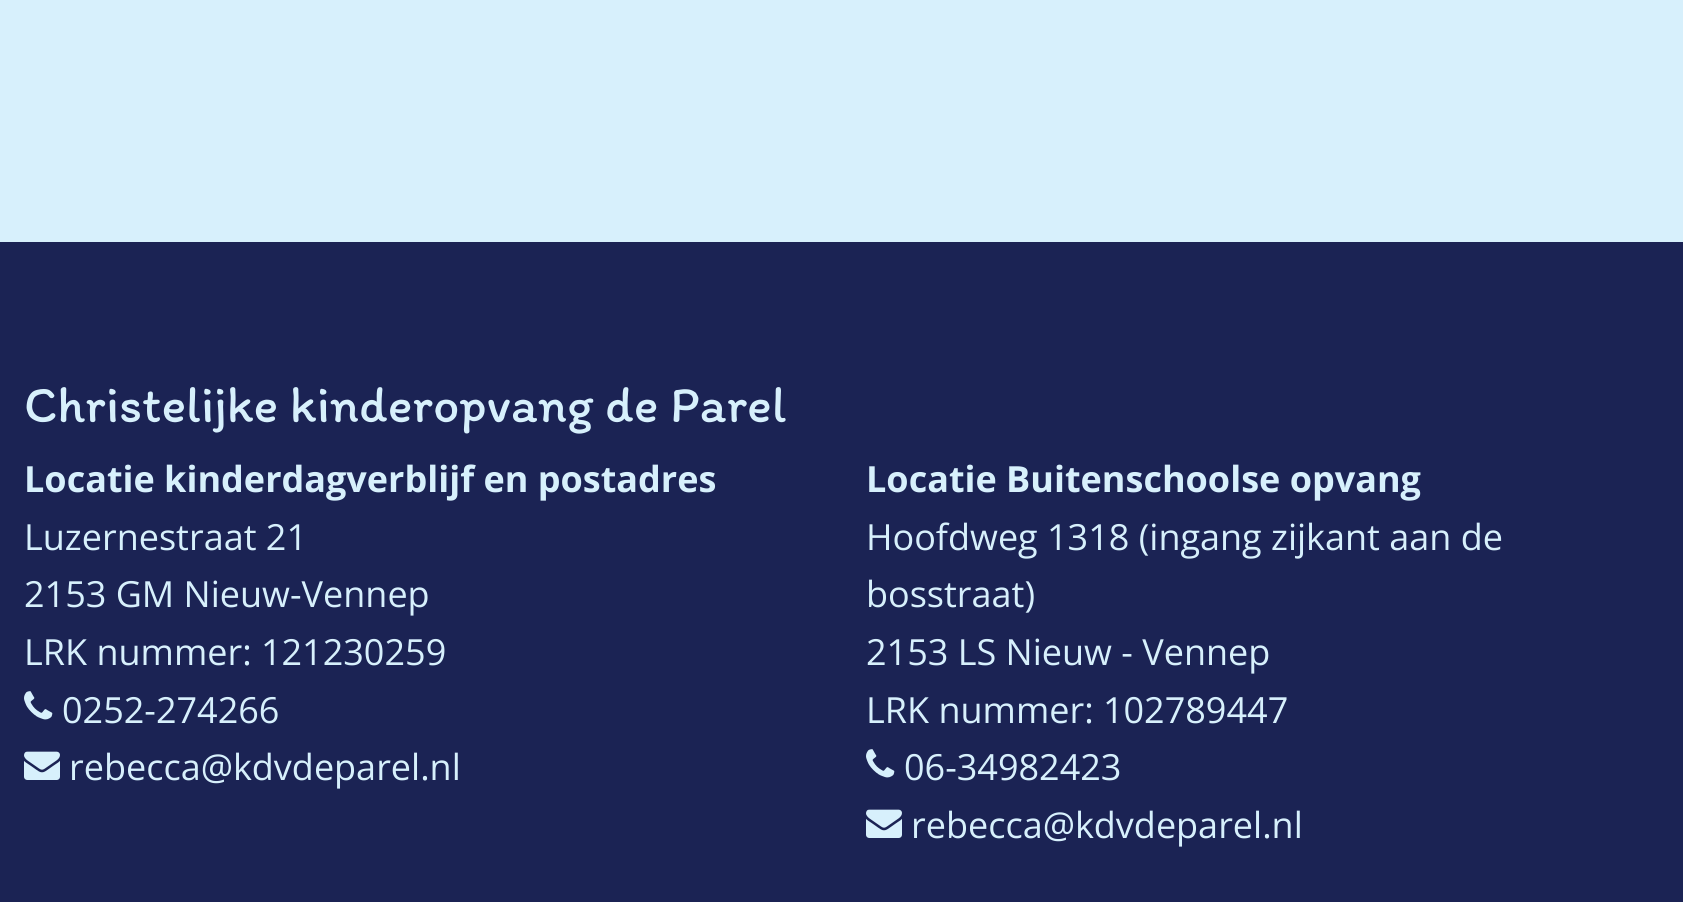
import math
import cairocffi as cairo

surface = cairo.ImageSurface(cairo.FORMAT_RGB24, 1683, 902)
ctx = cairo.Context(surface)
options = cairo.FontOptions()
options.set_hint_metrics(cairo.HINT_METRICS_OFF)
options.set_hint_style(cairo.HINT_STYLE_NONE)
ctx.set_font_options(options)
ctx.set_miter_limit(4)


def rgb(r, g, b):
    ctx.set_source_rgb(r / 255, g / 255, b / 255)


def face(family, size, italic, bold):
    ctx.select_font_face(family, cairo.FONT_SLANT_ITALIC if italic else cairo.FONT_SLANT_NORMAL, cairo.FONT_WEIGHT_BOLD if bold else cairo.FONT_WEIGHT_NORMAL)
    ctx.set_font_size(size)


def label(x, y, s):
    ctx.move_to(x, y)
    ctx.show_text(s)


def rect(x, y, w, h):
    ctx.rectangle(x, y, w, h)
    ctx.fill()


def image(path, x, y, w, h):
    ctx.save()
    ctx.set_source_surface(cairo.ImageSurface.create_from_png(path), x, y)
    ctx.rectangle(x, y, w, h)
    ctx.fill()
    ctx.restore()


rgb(215, 240, 252)
ctx.paint()
rgb(27, 35, 84)
rect(0, 242, 1683, 660)
face('Itim', 51.75, 0, 0)
rgb(215, 240, 252)
label(24, 422, 'Christelijke kinderopvang de Parel')
face('Open Sans', 36, 0, 1)
label(24, 492, 'Locatie kinderdagverblijf en postadres')
face('Open Sans', 36, 0, 0)
label(24, 550, 'Luzernestraat 21')
label(24, 607, '2153 GM Nieuw-Vennep')
label(24, 665, 'LRK nummer: 121230259')
image('image0.png', 24, 691, 29, 29)
label(62, 723, '0252-274266')
image('image1.png', 24, 751, 36, 29)
label(69, 780, 'rebecca@kdvdeparel.nl')
face('Open Sans', 36, 0, 1)
label(866, 492, 'Locatie Buitenschoolse opvang')
face('Open Sans', 36, 0, 0)
label(866, 550, 'Hoofdweg 1318 (ingang zijkant aan de')
label(866, 607, 'bosstraat)')
label(866, 665, '2153 LS Nieuw - Vennep')
label(866, 723, 'LRK nummer: 102789447')
image('image0.png', 866, 749, 29, 29)
label(904, 780, '06-34982423')
image('image1.png', 866, 809, 36, 29)
label(911, 838, 'rebecca@kdvdeparel.nl')
surface.write_to_png('render.png')
